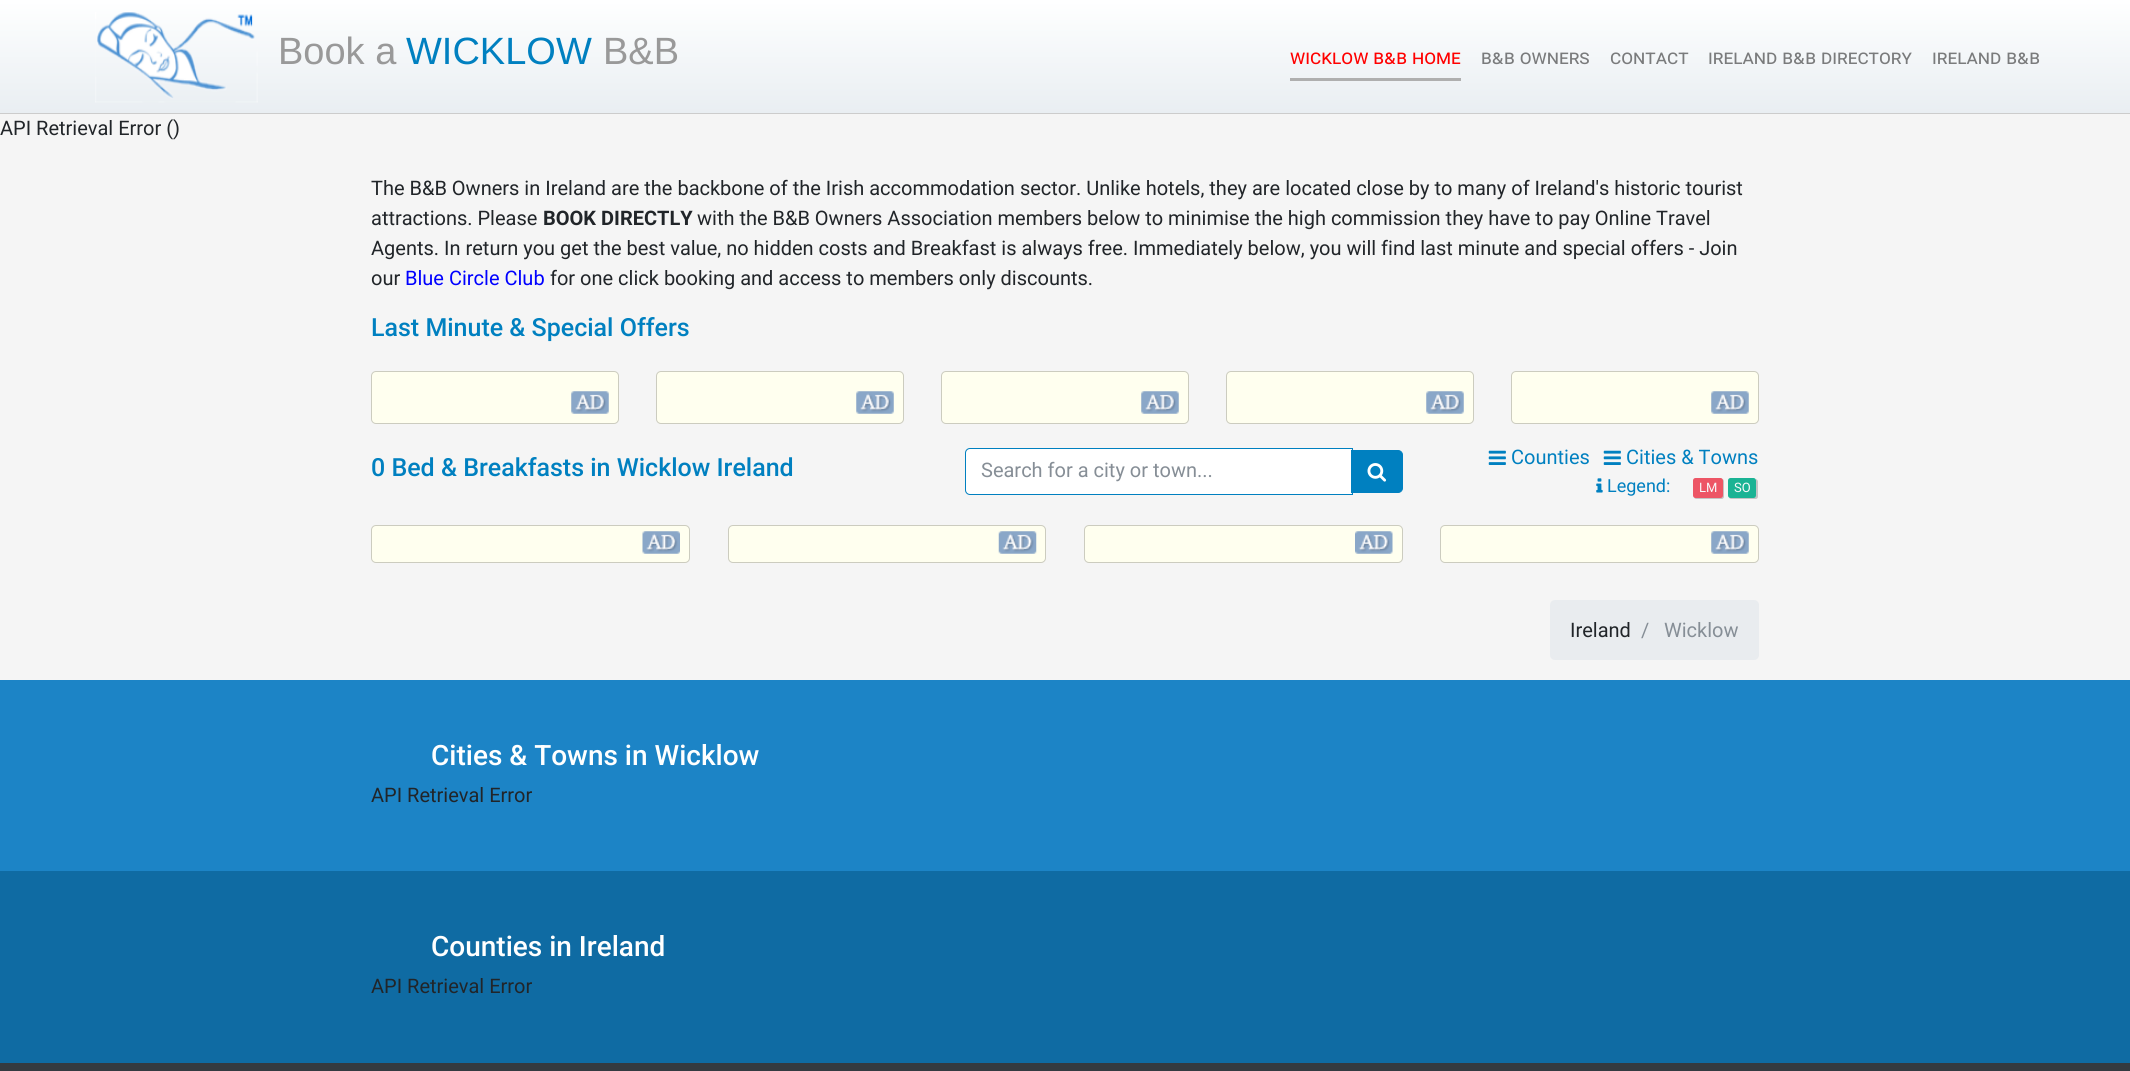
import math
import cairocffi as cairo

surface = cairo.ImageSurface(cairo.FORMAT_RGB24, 2130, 1071)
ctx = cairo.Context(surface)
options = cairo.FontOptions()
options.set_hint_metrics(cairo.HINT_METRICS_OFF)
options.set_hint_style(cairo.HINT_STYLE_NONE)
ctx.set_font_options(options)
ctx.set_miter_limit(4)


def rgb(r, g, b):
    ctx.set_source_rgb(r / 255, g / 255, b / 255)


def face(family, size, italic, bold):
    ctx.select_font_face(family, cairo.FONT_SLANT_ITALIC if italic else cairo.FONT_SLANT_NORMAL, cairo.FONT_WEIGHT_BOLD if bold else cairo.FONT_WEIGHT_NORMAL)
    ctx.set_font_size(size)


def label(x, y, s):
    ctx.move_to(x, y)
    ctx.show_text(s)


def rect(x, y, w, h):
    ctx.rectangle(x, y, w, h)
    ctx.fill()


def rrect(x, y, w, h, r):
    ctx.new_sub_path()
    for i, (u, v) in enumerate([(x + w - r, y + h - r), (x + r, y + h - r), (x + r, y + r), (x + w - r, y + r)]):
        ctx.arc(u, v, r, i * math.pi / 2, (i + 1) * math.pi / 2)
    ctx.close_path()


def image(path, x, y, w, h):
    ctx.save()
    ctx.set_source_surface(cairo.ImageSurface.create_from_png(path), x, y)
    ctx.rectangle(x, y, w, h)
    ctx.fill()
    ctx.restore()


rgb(245, 245, 245)
ctx.paint()
gradient = cairo.LinearGradient(1065, 0, 1065, 113)
gradient.add_color_stop_rgba(0.01, 0.996, 1, 1, 1)
gradient.add_color_stop_rgba(1, 0.914, 0.933, 0.949, 1)
ctx.set_source(gradient)
rect(0, 0, 2130, 113)
rgb(204, 204, 204)
rect(0, 113, 2130, 1)
image('image0.png', 95, 12, 163, 91)
face('Liberation Sans', 38, 0, 0)
rgb(153, 153, 153)
label(278, 64, 'Book a')
rgb(0, 128, 192)
label(406, 64, 'WICKLOW')
rgb(153, 153, 153)
label(603, 64, 'B&B')
rgb(175, 175, 175)
rect(1290, 78, 171, 3)
face('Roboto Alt', 20, 0, 0)
rgb(255, 0, 0)
label(1290, 64, 'wicklow b&b home')
rgb(122, 123, 124)
label(1481, 64, 'b&b owners')
label(1610, 64, 'contact')
label(1708, 64, 'ireland b&b directory')
label(1932, 64, 'ireland b&b')
face('Roboto', 20, 0, 0)
rgb(33, 37, 41)
label(0, 135, 'API Retrieval Error ()')
label(371, 195, 'The B&B Owners in Ireland are the backbone of the Irish accommodation sector. Unlike hotels, they are located close by to many of Ireland\'s historic tourist')
label(371, 225, 'attractions. Please')
face('Roboto', 20, 0, 1)
label(543, 225, 'BOOK DIRECTLY')
face('Roboto', 20, 0, 0)
label(697, 225, 'with the B&B Owners Association members below to minimise the high commission they have to pay Online Travel')
label(371, 255, 'Agents. In return you get the best value, no hidden costs and Breakfast is always free. Immediately below, you will find last minute and special offers - Join')
label(371, 285, 'our')
rgb(0, 0, 255)
label(405, 285, 'Blue Circle Club')
rgb(33, 37, 41)
label(550, 285, 'for one click booking and access to members only discounts.')
face('Roboto Medium', 25, 0, 0)
rgb(0, 128, 192)
label(371, 336, 'Last Minute & Special Offers')
rgb(255, 255, 239)
rrect(371, 371, 248, 53, 5)
ctx.fill()
image('image1.png', 571, 391, 38, 23)
rrect(371.5, 371.5, 247, 52, 4.5)
ctx.set_source_rgba(0, 0, 0, 0.2)
ctx.set_line_width(1)
ctx.stroke()
rgb(255, 255, 239)
rrect(656, 371, 248, 53, 5)
ctx.fill()
image('image1.png', 856, 391, 38, 23)
rrect(656.5, 371.5, 247, 52, 4.5)
ctx.set_source_rgba(0, 0, 0, 0.2)
ctx.stroke()
rgb(255, 255, 239)
rrect(941, 371, 248, 53, 5)
ctx.fill()
image('image1.png', 1141, 391, 38, 23)
rrect(941.5, 371.5, 247, 52, 4.5)
ctx.set_source_rgba(0, 0, 0, 0.2)
ctx.stroke()
rgb(255, 255, 239)
rrect(1226, 371, 248, 53, 5)
ctx.fill()
image('image1.png', 1426, 391, 38, 23)
rrect(1226.5, 371.5, 247, 52, 4.5)
ctx.set_source_rgba(0, 0, 0, 0.2)
ctx.stroke()
rgb(255, 255, 239)
rrect(1511, 371, 248, 53, 5)
ctx.fill()
image('image1.png', 1711, 391, 38, 23)
rrect(1511.5, 371.5, 247, 52, 4.5)
ctx.set_source_rgba(0, 0, 0, 0.2)
ctx.stroke()
rgb(0, 128, 192)
label(371, 476, '0 Bed & Breakfasts in Wicklow Ireland')
rgb(255, 255, 255)
ctx.new_path()
ctx.move_to(970, 449)
ctx.line_to(1351, 449)
ctx.line_to(1351, 494)
ctx.line_to(970, 494)
ctx.curve_to(968, 494, 966, 492, 966, 490)
ctx.line_to(966, 453)
ctx.curve_to(966, 451, 968, 449, 970, 449)
ctx.close_path()
ctx.fill()
ctx.new_path()
ctx.move_to(970, 448.5)
ctx.line_to(1352.5, 448.5)
ctx.line_to(1352.5, 494.5)
ctx.line_to(970, 494.5)
ctx.curve_to(967.5, 494.5, 965.5, 492.5, 965.5, 490)
ctx.line_to(965.5, 453)
ctx.curve_to(965.5, 450.5, 967.5, 448.5, 970, 448.5)
ctx.close_path()
rgb(0, 128, 192)
ctx.stroke()
face('Roboto', 20, 0, 0)
rgb(134, 142, 150)
label(981, 477, 'Search for a city or town...')
rgb(0, 128, 192)
ctx.new_path()
ctx.move_to(1351.5, 450.5)
ctx.line_to(1398, 450.5)
ctx.curve_to(1400.5, 450.5, 1402.5, 452.5, 1402.5, 455)
ctx.line_to(1402.5, 488)
ctx.curve_to(1402.5, 490.5, 1400.5, 492.5, 1398, 492.5)
ctx.line_to(1351.5, 492.5)
ctx.close_path()
ctx.fill_preserve()
ctx.stroke()
image('image2.png', 1367, 463, 20, 19)
image('image3.png', 1488, 450, 18, 15)
label(1511, 464, 'Counties')
image('image3.png', 1603, 450, 18, 15)
label(1626, 464, 'Cities & Towns')
image('image4.png', 1596, 478, 7, 15)
face('Roboto', 18, 0, 0)
label(1607, 492, 'Legend:')
rgb(196, 196, 196)
ctx.new_path()
ctx.move_to(1694, 497.5)
ctx.curve_to(1694.5, 498.5, 1695.5, 499, 1696.5, 499)
ctx.line_to(1721.5, 499)
ctx.curve_to(1723, 499, 1724, 498, 1724, 496.5)
ctx.line_to(1724, 481.5)
ctx.curve_to(1724, 480.5, 1723.5, 479.5, 1722.5, 479)
ctx.line_to(1722.5, 490)
ctx.curve_to(1722.5, 497.5, 1723.5, 497.5, 1716, 497.5)
ctx.close_path()
ctx.fill()
rgb(237, 85, 101)
rrect(1693, 478, 30, 20, 2.5)
ctx.fill()
face('Roboto', 13, 0, 0)
rgb(248, 249, 250)
label(1699, 492, 'LM')
rgb(196, 196, 196)
ctx.new_path()
ctx.move_to(1729, 497.5)
ctx.curve_to(1729.5, 498.5, 1730.5, 499, 1731.5, 499)
ctx.line_to(1755.5, 499)
ctx.curve_to(1757, 499, 1758, 498, 1758, 496.5)
ctx.line_to(1758, 481.5)
ctx.curve_to(1758, 480.5, 1757, 479.5, 1756, 479)
ctx.line_to(1756, 490)
ctx.curve_to(1756, 497, 1757, 497.5, 1750, 497.5)
ctx.close_path()
ctx.fill()
rgb(26, 179, 148)
rrect(1728, 478, 28, 20, 2.5)
ctx.fill()
rgb(248, 249, 250)
label(1734, 492, 'SO')
rgb(255, 255, 239)
rrect(371, 525, 319, 38, 5)
ctx.fill()
image('image5.png', 642, 531, 38, 23)
rrect(371.5, 525.5, 318, 37, 4.5)
ctx.set_source_rgba(0, 0, 0, 0.2)
ctx.stroke()
rgb(255, 255, 239)
rrect(728, 525, 318, 38, 5)
ctx.fill()
image('image6.png', 998, 531, 39, 23)
rrect(728.5, 525.5, 317, 37, 4.5)
ctx.set_source_rgba(0, 0, 0, 0.2)
ctx.stroke()
rgb(255, 255, 239)
rrect(1084, 525, 319, 38, 5)
ctx.fill()
image('image7.png', 1355, 531, 38, 23)
rrect(1084.5, 525.5, 318, 37, 4.5)
ctx.set_source_rgba(0, 0, 0, 0.2)
ctx.stroke()
rgb(255, 255, 239)
rrect(1440, 525, 319, 38, 5)
ctx.fill()
image('image1.png', 1711, 531, 38, 23)
rrect(1440.5, 525.5, 318, 37, 4.5)
ctx.set_source_rgba(0, 0, 0, 0.2)
ctx.stroke()
rgb(233, 236, 239)
rrect(1550, 600, 209, 60, 5)
ctx.fill()
face('Roboto', 20, 0, 0)
rgb(33, 37, 41)
label(1570, 637, 'Ireland')
rgb(134, 142, 150)
label(1641, 637, '/')
label(1664, 637, 'Wicklow')
rgb(28, 132, 198)
rect(0, 680, 2130, 191)
face('Roboto Medium', 28, 0, 0)
rgb(255, 255, 255)
label(431, 765, 'Cities & Towns in Wicklow')
face('Roboto', 20, 0, 0)
rgb(33, 37, 41)
label(371, 802, 'API Retrieval Error')
rgb(15, 107, 163)
rect(0, 871, 2130, 192)
face('Roboto Medium', 28, 0, 0)
rgb(255, 255, 255)
label(431, 956, 'Counties in Ireland')
face('Roboto', 20, 0, 0)
rgb(33, 37, 41)
label(371, 993, 'API Retrieval Error')
rgb(52, 58, 64)
rect(0, 1063, 2130, 8)
surface.write_to_png('render.png')
